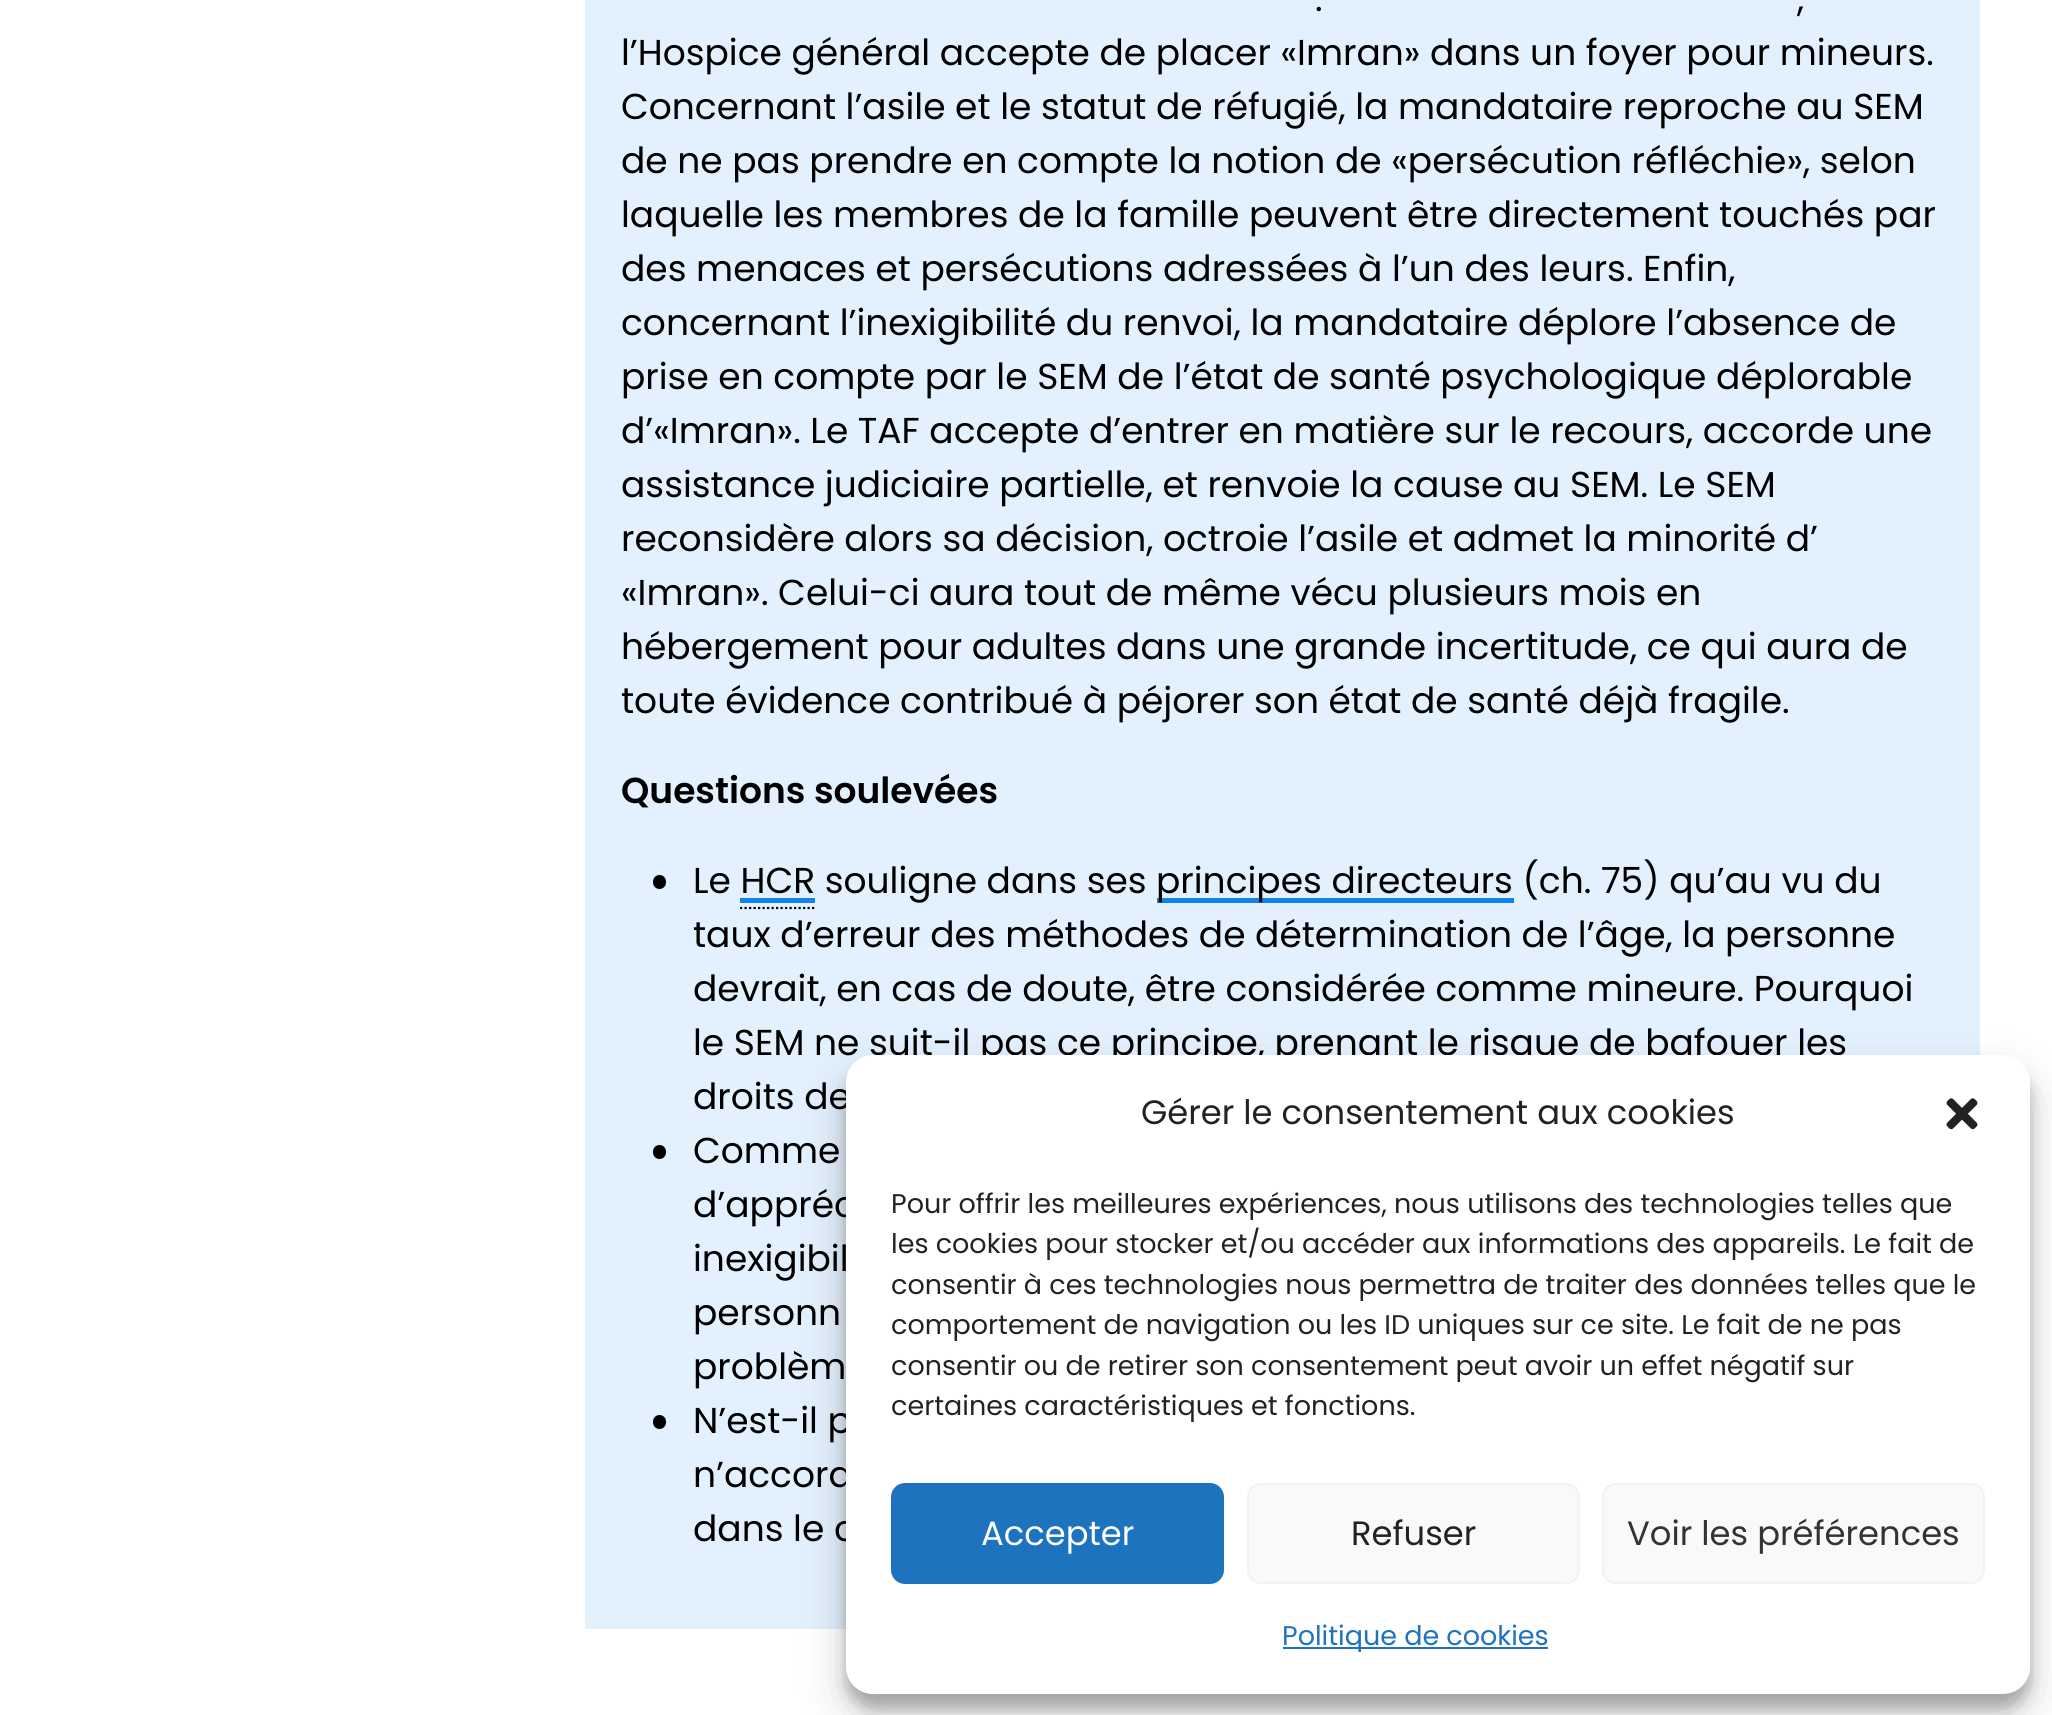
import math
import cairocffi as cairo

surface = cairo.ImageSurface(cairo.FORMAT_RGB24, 2052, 1715)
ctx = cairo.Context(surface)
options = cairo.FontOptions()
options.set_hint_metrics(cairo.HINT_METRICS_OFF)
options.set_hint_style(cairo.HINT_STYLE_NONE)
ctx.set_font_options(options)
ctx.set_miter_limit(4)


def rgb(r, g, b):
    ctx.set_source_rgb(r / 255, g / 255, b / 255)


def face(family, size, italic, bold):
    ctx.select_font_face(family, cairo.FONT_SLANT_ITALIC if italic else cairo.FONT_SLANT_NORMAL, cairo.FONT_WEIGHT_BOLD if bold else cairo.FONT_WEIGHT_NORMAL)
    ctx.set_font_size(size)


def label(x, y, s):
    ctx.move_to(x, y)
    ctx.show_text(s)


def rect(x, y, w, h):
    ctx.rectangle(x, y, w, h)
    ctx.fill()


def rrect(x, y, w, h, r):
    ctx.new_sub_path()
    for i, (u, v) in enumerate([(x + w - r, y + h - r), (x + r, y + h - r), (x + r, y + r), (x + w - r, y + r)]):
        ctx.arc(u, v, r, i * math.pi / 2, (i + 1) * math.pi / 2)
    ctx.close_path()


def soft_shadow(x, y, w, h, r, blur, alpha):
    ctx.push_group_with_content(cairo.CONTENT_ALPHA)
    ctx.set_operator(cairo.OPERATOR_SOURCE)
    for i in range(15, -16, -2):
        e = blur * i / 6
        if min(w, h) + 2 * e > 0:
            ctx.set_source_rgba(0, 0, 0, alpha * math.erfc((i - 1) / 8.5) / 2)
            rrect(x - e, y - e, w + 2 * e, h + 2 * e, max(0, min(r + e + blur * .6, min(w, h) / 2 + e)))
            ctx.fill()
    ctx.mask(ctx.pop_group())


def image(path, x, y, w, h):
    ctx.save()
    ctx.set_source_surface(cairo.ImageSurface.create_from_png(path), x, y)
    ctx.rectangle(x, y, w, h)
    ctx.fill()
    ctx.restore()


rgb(255, 255, 255)
ctx.paint()
rgb(227, 240, 253)
rect(585, 0, 1395, 1629)
face('Poppins', 36, 0, 0)
rgb(0, 0, 0)
label(1315, 11, '.')
label(1797, 11, ',')
label(621, 65, 'l’Hospice général accepte de placer «Imran» dans un foyer pour mineurs.')
label(621, 119, 'Concernant l’asile et le statut de réfugié, la mandataire reproche au SEM')
label(621, 173, 'de ne pas prendre en compte la notion de «persécution réfléchie», selon')
label(621, 227, 'laquelle les membres de la famille peuvent être directement touchés par')
label(621, 281, 'des menaces et persécutions adressées à l’un des leurs. Enfin,')
label(621, 335, 'concernant l’inexigibilité du renvoi, la mandataire déplore l’absence de')
label(621, 389, 'prise en compte par le SEM de l’état de santé psychologique déplorable')
label(621, 443, 'd’«Imran». Le TAF accepte d’entrer en matière sur le recours, accorde une')
label(621, 497, 'assistance judiciaire partielle, et renvoie la cause au SEM. Le SEM')
label(621, 551, 'reconsidère alors sa décision, octroie l’asile et admet la minorité d’')
label(621, 605, '«Imran». Celui-ci aura tout de même vécu plusieurs mois en')
label(621, 659, 'hébergement pour adultes dans une grande incertitude, ce qui aura de')
label(621, 713, 'toute évidence contribué à péjorer son état de santé déjà fragile.')
face('Poppins SemiBold', 36, 0, 0)
label(621, 803, 'Questions soulevées')
rrect(653, 875, 13, 14, 6.5)
ctx.fill()
face('Poppins', 36, 0, 0)
label(693, 893, 'Le HCR souligne dans ses')
rgb(19, 131, 231)
rect(1157, 898, 357, 5)
rgb(0, 0, 0)
label(1156, 893, 'principes directeurs (ch. 75) qu’au vu du')
rgb(19, 131, 231)
rect(740, 898, 75, 5)
ctx.new_path()
ctx.move_to(740, 908)
ctx.line_to(814.5, 908)
rgb(0, 0, 0)
ctx.set_line_width(2.2)
ctx.set_dash([2.25, 2.25])
ctx.stroke()
label(693, 947, 'taux d’erreur des méthodes de détermination de l’âge, la personne')
label(693, 1001, 'devrait, en cas de doute, être considérée comme mineure. Pourquoi')
label(693, 1055, 'le SEM ne suit-il pas ce principe, prenant le risque de bafouer les')
label(693, 1109, 'droits de')
rrect(653, 1145, 13, 14, 6.5)
ctx.fill()
label(693, 1163, 'Comme')
label(693, 1217, 'd’appréc')
label(693, 1271, 'inexigibil')
label(693, 1325, 'personn')
label(693, 1379, 'problèm')
rrect(653, 1415, 13, 14, 6.5)
ctx.fill()
label(693, 1433, 'N’est-il p')
label(693, 1487, 'n’accord')
label(693, 1541, 'dans le c')
rgb(0, 0, 0)
soft_shadow(846, 1069, 1184, 639, 27, 7, 0.23)
soft_shadow(846, 1078, 1184, 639, 27, 22.5, 0.19)
rgb(255, 255, 255)
rrect(846, 1055, 1184, 639, 27)
ctx.fill()
face('Poppins', 33.75, 0, 0)
rgb(34, 34, 34)
label(1141, 1124, 'Gérer le consentement aux cookies')
image('image0.png', 1946, 1098, 32, 32)
face('Poppins', 27, 0, 0)
label(891, 1213, 'Pour offrir les meilleures expériences, nous utilisons des technologies telles que')
label(891, 1253, 'les cookies pour stocker et/ou accéder aux informations des appareils. Le fait de')
label(891, 1294, 'consentir à ces technologies nous permettra de traiter des données telles que le')
label(891, 1334, 'comportement de navigation ou les ID uniques sur ce site. Le fait de ne pas')
label(891, 1375, 'consentir ou de retirer son consentement peut avoir un effet négatif sur')
label(891, 1415, 'certaines caractéristiques et fonctions.')
rgb(30, 115, 190)
rrect(892, 1484, 331, 99, 13)
ctx.fill_preserve()
ctx.set_line_width(2)
ctx.set_dash([])
ctx.stroke()
face('Poppins', 33.75, 0, 0)
rgb(255, 255, 255)
label(981, 1545, 'Accepter')
rgb(249, 249, 249)
rrect(1248, 1484, 331, 99, 13)
ctx.fill_preserve()
rgb(242, 242, 242)
ctx.stroke()
rgb(34, 34, 34)
label(1351, 1545, 'Refuser')
rgb(249, 249, 249)
rrect(1603, 1484, 381, 99, 13)
ctx.fill_preserve()
rgb(242, 242, 242)
ctx.stroke()
rgb(51, 51, 51)
label(1627, 1545, 'Voir les préférences')
rgb(30, 115, 190)
rect(1283, 1647, 265, 2)
face('Poppins', 27, 0, 0)
label(1282, 1645, 'Politique de cookies')
surface.write_to_png('render.png')
